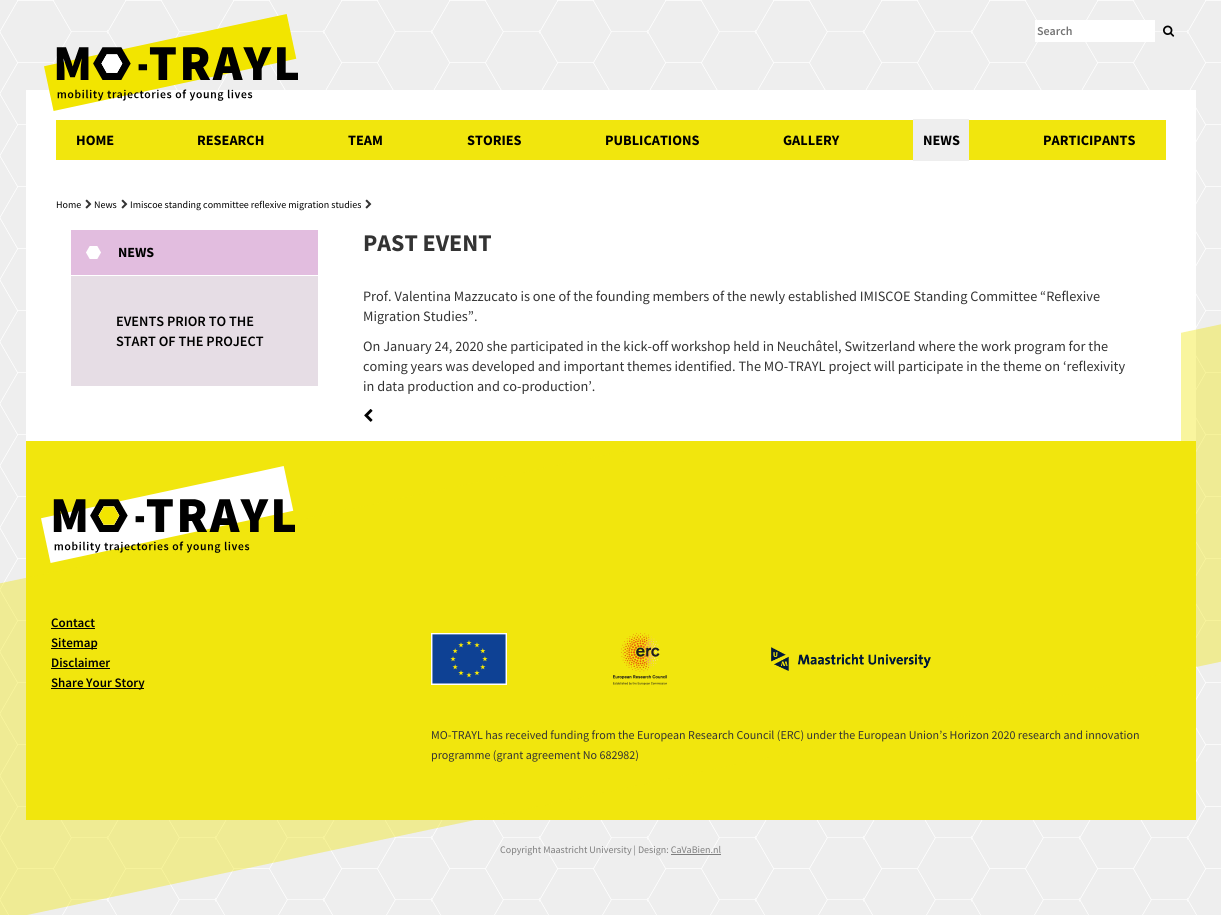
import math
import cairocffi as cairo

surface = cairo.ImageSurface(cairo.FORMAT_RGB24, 1221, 915)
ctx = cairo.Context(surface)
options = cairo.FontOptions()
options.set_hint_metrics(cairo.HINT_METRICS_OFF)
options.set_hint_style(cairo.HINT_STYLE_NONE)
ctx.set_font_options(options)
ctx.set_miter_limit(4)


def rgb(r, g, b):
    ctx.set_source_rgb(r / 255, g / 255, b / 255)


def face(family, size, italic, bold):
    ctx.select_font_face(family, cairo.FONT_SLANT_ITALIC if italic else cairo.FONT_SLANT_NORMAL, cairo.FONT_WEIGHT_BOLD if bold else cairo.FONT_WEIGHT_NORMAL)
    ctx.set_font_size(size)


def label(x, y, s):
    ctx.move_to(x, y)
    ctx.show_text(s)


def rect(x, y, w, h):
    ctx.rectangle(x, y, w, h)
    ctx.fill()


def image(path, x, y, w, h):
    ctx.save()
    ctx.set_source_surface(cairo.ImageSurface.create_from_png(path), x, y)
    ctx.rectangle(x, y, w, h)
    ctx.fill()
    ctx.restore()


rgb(255, 255, 255)
ctx.paint()
image('image0.png', 0, 0, 1221, 915)
rgb(255, 255, 255)
rect(26, 90, 1170, 351)
image('image1.png', 44, 14, 254, 97)
rect(1035, 20, 120, 22)
face('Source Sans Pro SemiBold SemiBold', 12, 0, 0)
rgb(117, 117, 117)
label(1037, 35, 'Search')
image('image2.png', 1163, 25, 12, 12)
rgb(241, 230, 13)
rect(26, 441, 1170, 379)
ctx.set_source_rgba(0.945, 0.902, 0.051, 0.4)
ctx.new_path()
ctx.move_to(-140, 613)
ctx.line_to(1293, 309)
ctx.line_to(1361, 632)
ctx.line_to(-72, 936)
ctx.close_path()
ctx.fill()
rgb(255, 255, 255)
rect(671, 332, 510, 109)
rgb(241, 230, 13)
rect(56, 120, 1110, 40)
face('Source Sans Pro', 14.3, 0, 1)
rgb(0, 0, 0)
label(76, 145, 'HOME')
label(197, 145, 'RESEARCH')
label(348, 145, 'TEAM')
label(467, 145, 'STORIES')
label(605, 145, 'PUBLICATIONS')
label(783, 145, 'GALLERY')
rgb(238, 238, 238)
rect(913, 119, 56, 42)
rgb(0, 0, 0)
label(923, 145, 'NEWS')
label(1043, 145, 'PARTICIPANTS')
face('Source Sans Pro', 10, 0, 0)
label(56, 208, 'Home')
image('image3.png', 85, 199, 7, 10)
label(94, 208, 'News')
image('image3.png', 121, 199, 7, 10)
label(130, 208, 'Imiscoe standing committee reflexive migration studies')
image('image3.png', 365, 199, 7, 10)
rgb(226, 189, 223)
rect(71, 230, 247, 45)
image('image4.png', 86, 246, 15, 13)
face('Source Sans Pro', 14, 0, 1)
rgb(0, 0, 0)
label(118, 257, 'NEWS')
rgb(230, 221, 229)
rect(71, 276, 247, 110)
face('Source Sans Pro SemiBold SemiBold', 14.3, 0, 0)
rgb(0, 0, 0)
label(116, 326, 'EVENTS PRIOR TO THE')
label(116, 346, 'START OF THE PROJECT')
face('Source Sans Pro', 24, 0, 1)
rgb(51, 51, 51)
label(363, 251, 'PAST EVENT')
face('Source Sans Pro', 14.3, 0, 0)
label(363, 301, 'Prof. Valentina Mazzucato is one of the founding members of the newly established IMISCOE Standing Committee “Reflexive')
label(363, 321, 'Migration Studies”.')
label(363, 351, 'On January 24, 2020 she participated in the kick-off workshop held in Neuchâtel, Switzerland where the work program for the')
label(363, 371, 'coming years was developed and important themes identified. The MO-TRAYL project will participate in the theme on ‘reflexivity')
label(363, 391, 'in data production and co-production’.')
image('image5.png', 364, 409, 9, 13)
image('image6.png', 41, 466, 254, 97)
face('Source Sans Pro SemiBold SemiBold', 13, 0, 0)
rgb(0, 0, 0)
label(51, 627, 'Contact')
rect(51, 628, 44, 1)
rect(51, 648, 46, 1)
label(51, 647, 'Sitemap')
label(51, 667, 'Disclaimer')
rect(51, 668, 59, 1)
rect(51, 688, 93, 1)
label(51, 687, 'Share Your Story')
image('image7.png', 431, 633, 76, 52)
image('image8.png', 613, 633, 54, 52)
image('image9.png', 771, 647, 160, 24)
face('Source Sans Pro', 12, 0, 0)
rgb(51, 51, 51)
label(431, 739, 'MO-TRAYL has received funding from the European Research Council (ERC) under the European Union’s Horizon 2020 research and innovation')
label(431, 759, 'programme (grant agreement No 682982)')
face('Source Sans Pro', 10, 0, 0)
rgb(126, 126, 126)
label(500, 853, 'Copyright Maastricht University | Design: CaVaBien.nl')
rect(671, 854, 50, 1)
surface.write_to_png('render.png')
